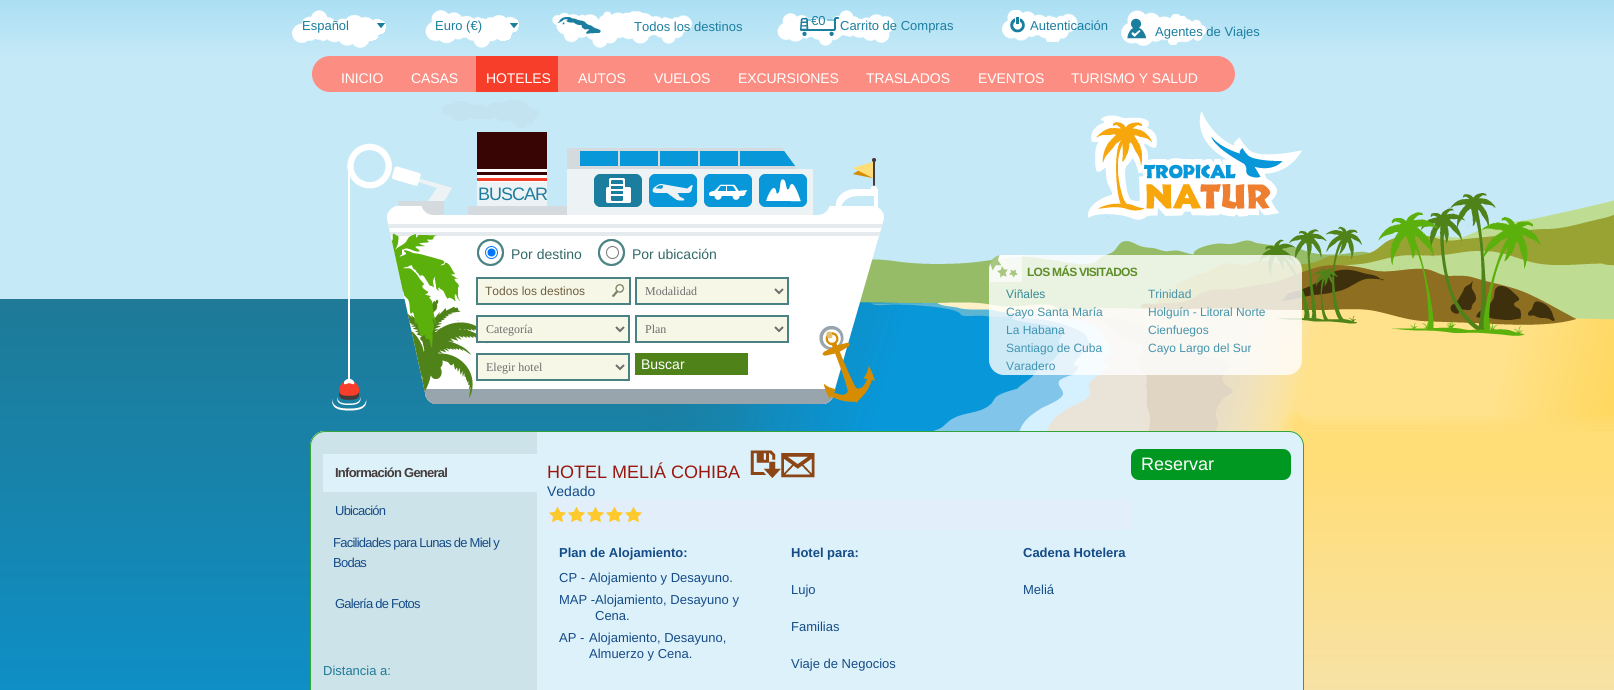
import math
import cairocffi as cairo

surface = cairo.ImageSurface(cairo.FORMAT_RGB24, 1614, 690)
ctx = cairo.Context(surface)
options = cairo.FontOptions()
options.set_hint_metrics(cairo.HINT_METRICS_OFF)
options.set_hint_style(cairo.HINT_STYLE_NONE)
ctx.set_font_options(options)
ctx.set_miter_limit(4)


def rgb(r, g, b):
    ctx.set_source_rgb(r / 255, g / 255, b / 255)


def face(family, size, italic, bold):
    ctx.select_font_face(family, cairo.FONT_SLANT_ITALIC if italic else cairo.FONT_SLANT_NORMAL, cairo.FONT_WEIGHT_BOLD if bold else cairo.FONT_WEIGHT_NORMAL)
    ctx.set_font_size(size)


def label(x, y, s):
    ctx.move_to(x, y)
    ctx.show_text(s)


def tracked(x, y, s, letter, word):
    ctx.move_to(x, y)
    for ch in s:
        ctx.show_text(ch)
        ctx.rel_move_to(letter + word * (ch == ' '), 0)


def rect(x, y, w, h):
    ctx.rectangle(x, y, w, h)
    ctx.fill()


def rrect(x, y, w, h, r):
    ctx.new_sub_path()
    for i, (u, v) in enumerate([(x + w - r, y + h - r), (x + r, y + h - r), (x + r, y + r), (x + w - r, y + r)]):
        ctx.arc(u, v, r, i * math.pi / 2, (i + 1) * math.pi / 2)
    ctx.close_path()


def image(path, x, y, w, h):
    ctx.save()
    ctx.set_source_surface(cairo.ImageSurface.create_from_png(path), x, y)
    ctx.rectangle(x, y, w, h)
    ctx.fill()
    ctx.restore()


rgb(255, 255, 255)
ctx.paint()
image('image0.png', 0, 0, 1614, 56)
image('image1.png', 292, 10, 94, 38)
image('image2.png', 377, 23, 8, 5)
face('Liberation Sans', 13, 0, 0)
rgb(27, 126, 159)
label(302, 30, 'Español')
image('image3.png', 425, 10, 94, 38)
image('image2.png', 510, 23, 8, 5)
label(435, 30, 'Euro (€)')
image('image4.png', 552, 11, 140, 37)
label(634, 31, 'Todos los destinos')
image('image5.png', 777, 10, 118, 36)
image('image6.png', 800, 17, 11, 19)
rect(811, 29, 15, 2)
label(811, 25, '€0')
image('image7.png', 826, 17, 14, 19)
label(840, 30, 'Carrito de Compras')
image('image8.png', 1002, 10, 76, 32)
label(1030, 30, 'Autenticación')
image('image9.png', 1121, 10, 86, 36)
label(1155, 36, 'Agentes de Viajes')
rgb(198, 233, 247)
rect(0, 56, 1614, 243)
rgb(251, 141, 130)
rrect(312, 56, 923, 36, 18)
ctx.fill()
face('Liberation Sans', 14, 0, 0)
rgb(255, 255, 255)
tracked(341, 83, 'INICIO', -0.1, 0)
tracked(411, 83, 'CASAS', -0.1, 0)
rgb(247, 62, 42)
rect(476, 56, 82, 36)
rgb(255, 255, 255)
tracked(486, 83, 'HOTELES', -0.1, 0)
tracked(578, 83, 'AUTOS', -0.1, 0)
tracked(654, 83, 'VUELOS', -0.1, 0)
tracked(738, 83, 'EXCURSIONES', -0.1, 0)
tracked(866, 83, 'TRASLADOS', -0.1, 0)
tracked(978, 83, 'EVENTOS', -0.1, 0)
tracked(1071, 83, 'TURISMO Y SALUD', -0.1, 0)
image('image10.png', 0, 299, 772, 132)
image('image11.png', 646, 193, 968, 238)
image('image12.png', 1088, 111, 214, 109)
image('image13.png', 332, 100, 552, 311)
face('Liberation Sans', 18, 0, 0)
rgb(27, 126, 159)
tracked(478, 200, 'BUSCAR', -1, 0)
image('image14.png', 594, 174, 48, 33)
image('image15.png', 649, 174, 48, 33)
image('image16.png', 704, 174, 48, 33)
image('image17.png', 759, 174, 48, 33)
image('image18.png', 477, 239, 27, 27)
ctx.arc(491.5, 252.5, 6, 0, 2 * math.pi)
rgb(0, 117, 255)
ctx.set_line_width(1)
ctx.stroke()
ctx.arc(491.5, 252.5, 4, 0, 2 * math.pi)
ctx.fill()
face('Liberation Sans', 14, 0, 0)
rgb(51, 104, 104)
label(511, 259, 'Por destino')
image('image18.png', 598, 239, 27, 27)
ctx.arc(612.5, 252.5, 6, 0, 2 * math.pi)
rgb(118, 118, 118)
ctx.stroke()
rgb(51, 104, 104)
label(632, 259, 'Por ubicación')
rgb(247, 247, 231)
rect(478, 279, 151, 24)
image('image19.png', 612, 282, 13, 15)
ctx.rectangle(477, 278, 153, 26)
rgb(74, 130, 132)
ctx.set_line_width(2)
ctx.stroke()
face('Liberation Sans', 12, 0, 0)
rgb(111, 96, 64)
label(485, 295, 'Todos los destinos')
rgb(247, 247, 231)
ctx.rectangle(636, 278, 152, 26)
ctx.fill_preserve()
rgb(74, 130, 132)
ctx.stroke()
ctx.new_path()
ctx.move_to(775, 289)
ctx.line_to(779, 293)
ctx.line_to(783, 289)
rgb(109, 109, 109)
ctx.stroke()
face('Liberation Serif', 12, 0, 0)
label(645, 295, 'Modalidad')
rgb(247, 247, 231)
ctx.rectangle(477, 316, 152, 26)
ctx.fill_preserve()
rgb(74, 130, 132)
ctx.stroke()
ctx.new_path()
ctx.move_to(616, 327)
ctx.line_to(620, 331)
ctx.line_to(624, 327)
rgb(109, 109, 109)
ctx.stroke()
label(486, 333, 'Categoría')
rgb(247, 247, 231)
ctx.rectangle(636, 316, 152, 26)
ctx.fill_preserve()
rgb(74, 130, 132)
ctx.stroke()
ctx.new_path()
ctx.move_to(775, 327)
ctx.line_to(779, 331)
ctx.line_to(783, 327)
rgb(109, 109, 109)
ctx.stroke()
label(645, 333, 'Plan')
rgb(247, 247, 231)
ctx.rectangle(477, 354, 152, 26)
ctx.fill_preserve()
rgb(74, 130, 132)
ctx.stroke()
ctx.new_path()
ctx.move_to(616, 365)
ctx.line_to(620, 369)
ctx.line_to(624, 365)
rgb(109, 109, 109)
ctx.stroke()
label(486, 371, 'Elegir hotel')
rgb(80, 130, 26)
rect(635, 353, 113, 22)
face('Liberation Sans', 14, 0, 0)
rgb(255, 255, 255)
label(641, 369, 'Buscar')
ctx.set_source_rgba(1, 1, 1, 0.8)
rrect(989, 255, 313, 120, 15)
ctx.fill()
image('image20.png', 989, 255, 33, 27)
face('Liberation Sans', 12, 0, 1)
rgb(94, 142, 42)
tracked(1027, 276, 'LOS MÁS VISITADOS', -0.75, 0)
face('Liberation Sans', 12, 0, 0)
rgb(52, 138, 148)
label(1006, 298, 'Viñales')
rgb(68, 148, 171)
label(1148, 298, 'Trinidad')
label(1006, 316, 'Cayo Santa María')
label(1148, 316, 'Holguín - Litoral Norte')
rgb(63, 148, 177)
label(1006, 334, 'La Habana')
rgb(68, 148, 171)
label(1148, 334, 'Cienfuegos')
rgb(63, 148, 177)
label(1006, 352, 'Santiago de Cuba')
rgb(68, 148, 171)
label(1148, 352, 'Cayo Largo del Sur')
rgb(63, 148, 177)
label(1006, 370, 'Varadero')
image('image21.png', 324, 431, 1290, 259)
image('image22.png', 0, 431, 324, 259)
rgb(220, 241, 250)
rrect(310, 431, 994, 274, 15)
ctx.fill()
image('image23.png', 311, 431, 226, 259)
rrect(310.5, 431.5, 993, 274, 14.5)
rgb(51, 164, 55)
ctx.set_line_width(1)
ctx.stroke()
rgb(220, 241, 250)
rect(323, 454, 214, 38)
face('Liberation Sans', 13, 0, 1)
rgb(68, 59, 58)
tracked(335, 477, 'Información General', -0.75, 0)
face('Liberation Sans', 13, 0, 0)
rgb(21, 75, 135)
tracked(335, 515, 'Ubicación', -0.75, 0)
tracked(333, 547, 'Facilidades para Lunas de Miel y', -0.75, 0)
tracked(333, 567, 'Bodas', -0.75, 0)
tracked(335, 608, 'Galería de Fotos', -0.75, 0)
rgb(30, 122, 151)
label(323, 675, 'Distancia a:')
face('Liberation Sans', 18, 0, 0)
rgb(155, 23, 13)
label(547, 478, 'HOTEL MELIÁ COHIBA')
image('image24.png', 750, 450, 31, 28)
image('image25.png', 781, 453, 34, 25)
face('Liberation Sans', 14, 0, 0)
rgb(21, 75, 135)
label(547, 496, 'Vedado')
rgb(0, 152, 33)
rrect(1131, 449, 160, 31, 8)
ctx.fill()
face('Liberation Sans', 18, 0, 0)
rgb(255, 255, 255)
label(1141, 470, 'Reservar')
rgb(226, 239, 250)
rect(547, 499, 584, 31)
image('image26.png', 549, 507, 93, 15)
face('Liberation Sans', 13, 0, 1)
rgb(21, 75, 135)
label(559, 557, 'Plan de Alojamiento:')
face('Liberation Sans', 13, 0, 0)
label(559, 582, 'CP -')
label(589, 582, 'Alojamiento y Desayuno.')
label(559, 604, 'MAP -Alojamiento, Desayuno y')
label(595, 620, 'Cena.')
label(559, 642, 'AP -')
label(589, 642, 'Alojamiento, Desayuno,')
label(589, 658, 'Almuerzo y Cena.')
face('Liberation Sans', 13, 0, 1)
label(791, 557, 'Hotel para:')
face('Liberation Sans', 13, 0, 0)
label(791, 594, 'Lujo')
label(791, 631, 'Familias')
label(791, 668, 'Viaje de Negocios')
face('Liberation Sans', 13, 0, 1)
label(1023, 557, 'Cadena Hotelera')
face('Liberation Sans', 13, 0, 0)
label(1023, 594, 'Meliá')
surface.write_to_png('render.png')
